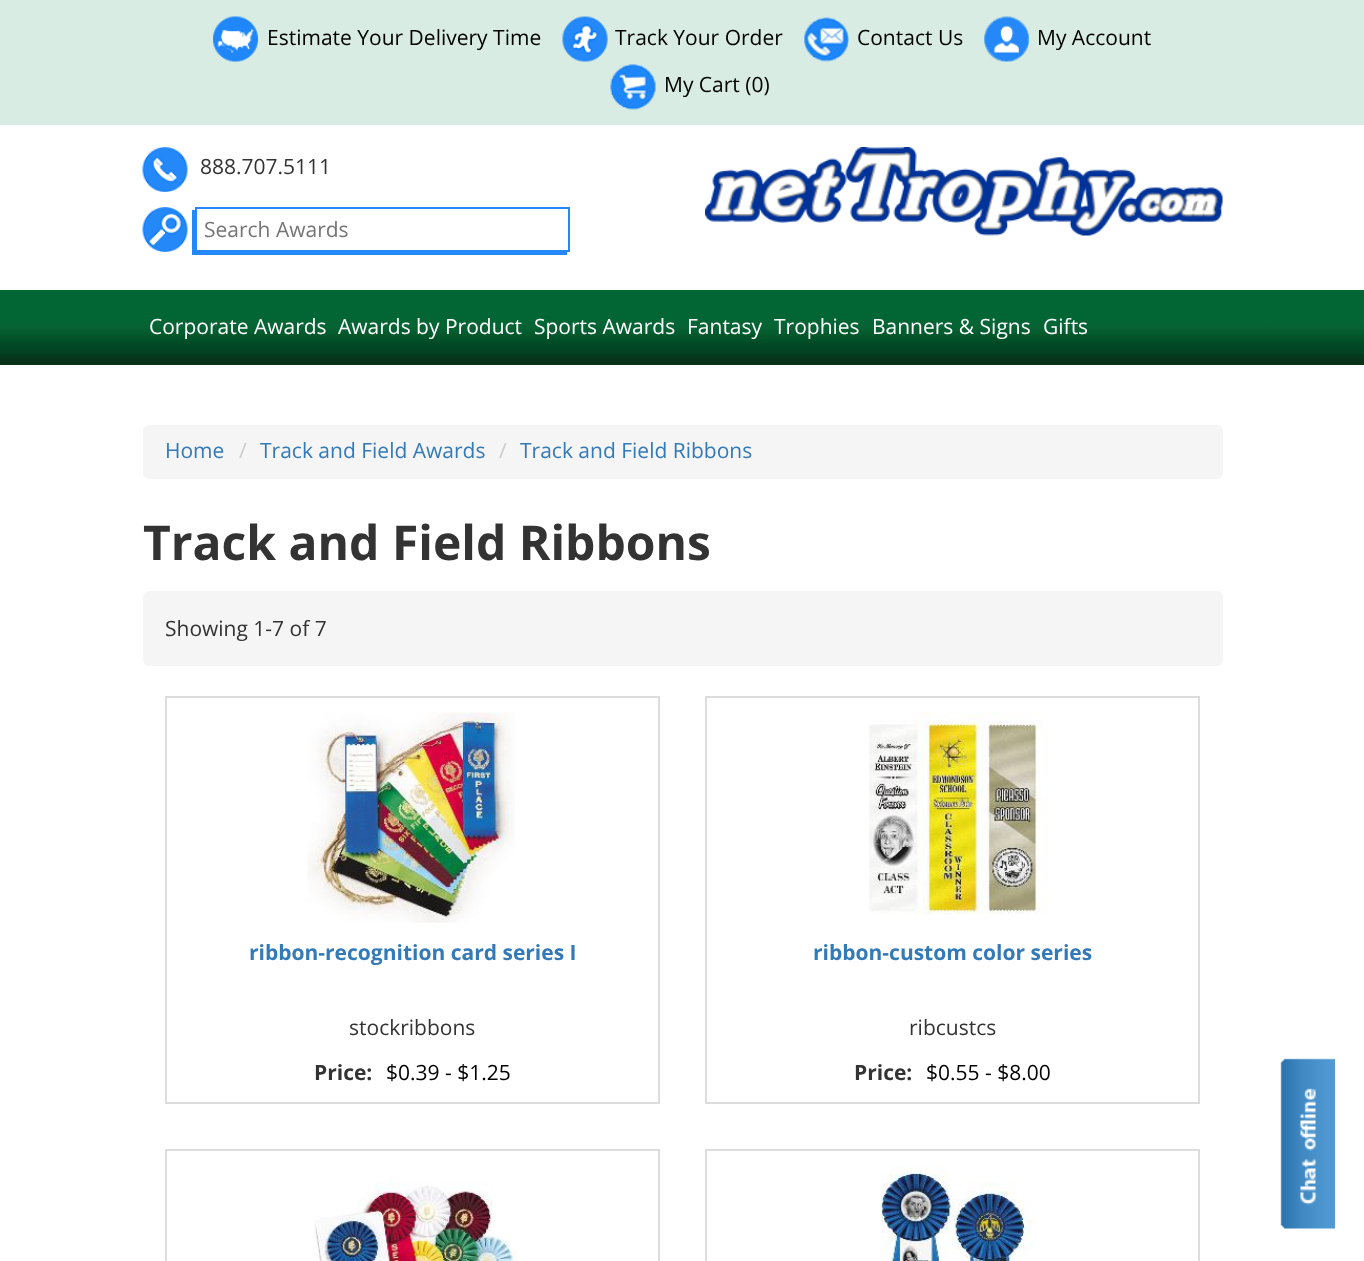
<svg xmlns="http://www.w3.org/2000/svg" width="1364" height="1261">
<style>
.a{font:21px Open Sans;fill:#000}
.b{font:21px Open Sans;fill:#333}
.c{font:21px Open Sans;fill:#757575}
.d{font:21px Open Sans;fill:#fff}
.e{font:21px Open Sans;fill:#337ab7}
.f{font:21px Open Sans;fill:#ccc}
.g{font:bold 48px Open Sans;fill:#333}
.h{font:bold 21px Open Sans;fill:#337ab7}
.i{font:bold 21px Open Sans;fill:#333}
</style>
<defs>
<linearGradient id="g1" gradientUnits="userSpaceOnUse" x1="683" y1="289" x2="683" y2="365"><stop offset="0" stop-color="#036534"/><stop offset="0.39" stop-color="#026634"/><stop offset="0.5" stop-color="#076334"/><stop offset="0.65" stop-color="#005327"/><stop offset="0.67" stop-color="#005128"/><stop offset="0.7" stop-color="#004c25"/><stop offset="0.78" stop-color="#004624"/><stop offset="0.85" stop-color="#054022"/><stop offset="0.87" stop-color="#023a1d"/><stop offset="0.93" stop-color="#08341b"/><stop offset="1" stop-color="#083018"/></linearGradient>
</defs>
<rect width="100%" height="100%" fill="#fff"/>
<path fill="#d8ece3" d="M0 0h1364v125H0z"/>
<image href="1.png" x="213" y="16" width="45" height="46"/>
<image href="2.png" x="562" y="16" width="46" height="46"/>
<image href="3.png" x="804" y="16" width="45" height="46"/>
<image href="4.png" x="984" y="16" width="45" height="46"/>
<image href="5.png" x="610" y="64" width="46" height="46"/>
<image href="6.png" x="142" y="147" width="46" height="45"/>
<image href="7.png" x="142" y="207" width="46" height="45"/>
<path fill="#2488f9" d="M192 210v45h375v-3h-372v-42z"/>
<path fill="none" stroke="#2488f9" stroke-width="2" d="M196 208h373v43H196z"/>
<image href="8.png" x="705" y="147" width="518" height="89"/>
<image href="9.png" x="1280" y="1058" width="55" height="171"/>
<path fill="url(#g1)" d="M0 290h1364v75H0z"/>
<rect fill="#f5f5f5" x="143" y="425" width="1080" height="54" rx="6"/>
<rect fill="#f5f5f5" x="143" y="591" width="1080" height="75" rx="6"/>
<path fill="none" stroke="#ddd" stroke-width="2" d="M166 697h493v406H166z"/>
<image href="10.png" x="307" y="712" width="208" height="211"/>
<path fill="none" stroke="#ddd" stroke-width="2" d="M706 697h493v406H706z"/>
<image href="11.png" x="868" y="712" width="180" height="203"/>
<path fill="none" stroke="#ddd" stroke-width="2" d="M166 1150h493v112H166z"/>
<image href="12.png" x="314" y="1182" width="204" height="79"/>
<path fill="none" stroke="#ddd" stroke-width="2" d="M706 1150h493v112H706z"/>
<image href="13.png" x="880" y="1165" width="153" height="96"/>
<text class="a" x="267" y="45">Estimate Your Delivery Time</text>
<text class="a" x="615" y="45">Track Your Order</text>
<text class="a" x="857" y="45">Contact Us</text>
<text class="a" x="1037" y="45">My Account</text>
<text class="a" x="664" y="92">My Cart (0)</text>
<text class="b" x="200" y="174">888.707.5111</text>
<text class="c" x="204" y="237">Search Awards</text>
<text class="d" x="149" y="334">Corporate Awards</text>
<text class="d" x="338" y="334">Awards by Product</text>
<text class="d" x="534" y="334">Sports Awards</text>
<text class="d" x="687" y="334">Fantasy</text>
<text class="d" x="774" y="334">Trophies</text>
<text class="d" x="872" y="334">Banners &amp; Signs</text>
<text class="d" x="1043" y="334">Gifts</text>
<text class="e" x="165" y="458">Home</text>
<text class="f" x="239" y="458">/</text>
<text class="e" x="260" y="458">Track and Field Awards</text>
<text class="f" x="499" y="458">/</text>
<text class="e" x="520" y="458">Track and Field Ribbons</text>
<text class="g" x="143" y="560">Track and Field Ribbons</text>
<text class="b" x="165" y="636">Showing 1-7 of 7</text>
<text class="h" x="249" y="960">ribbon-recognition card series I</text>
<text class="b" x="349" y="1035">stockribbons</text>
<text class="i" x="314" y="1080">Price:</text>
<text class="a" x="386" y="1080">$0.39 - $1.25</text>
<text class="h" x="813" y="960">ribbon-custom color series</text>
<text class="b" x="909" y="1035">ribcustcs</text>
<text class="i" x="854" y="1080">Price:</text>
<text class="a" x="926" y="1080">$0.55 - $8.00</text>
</svg>
